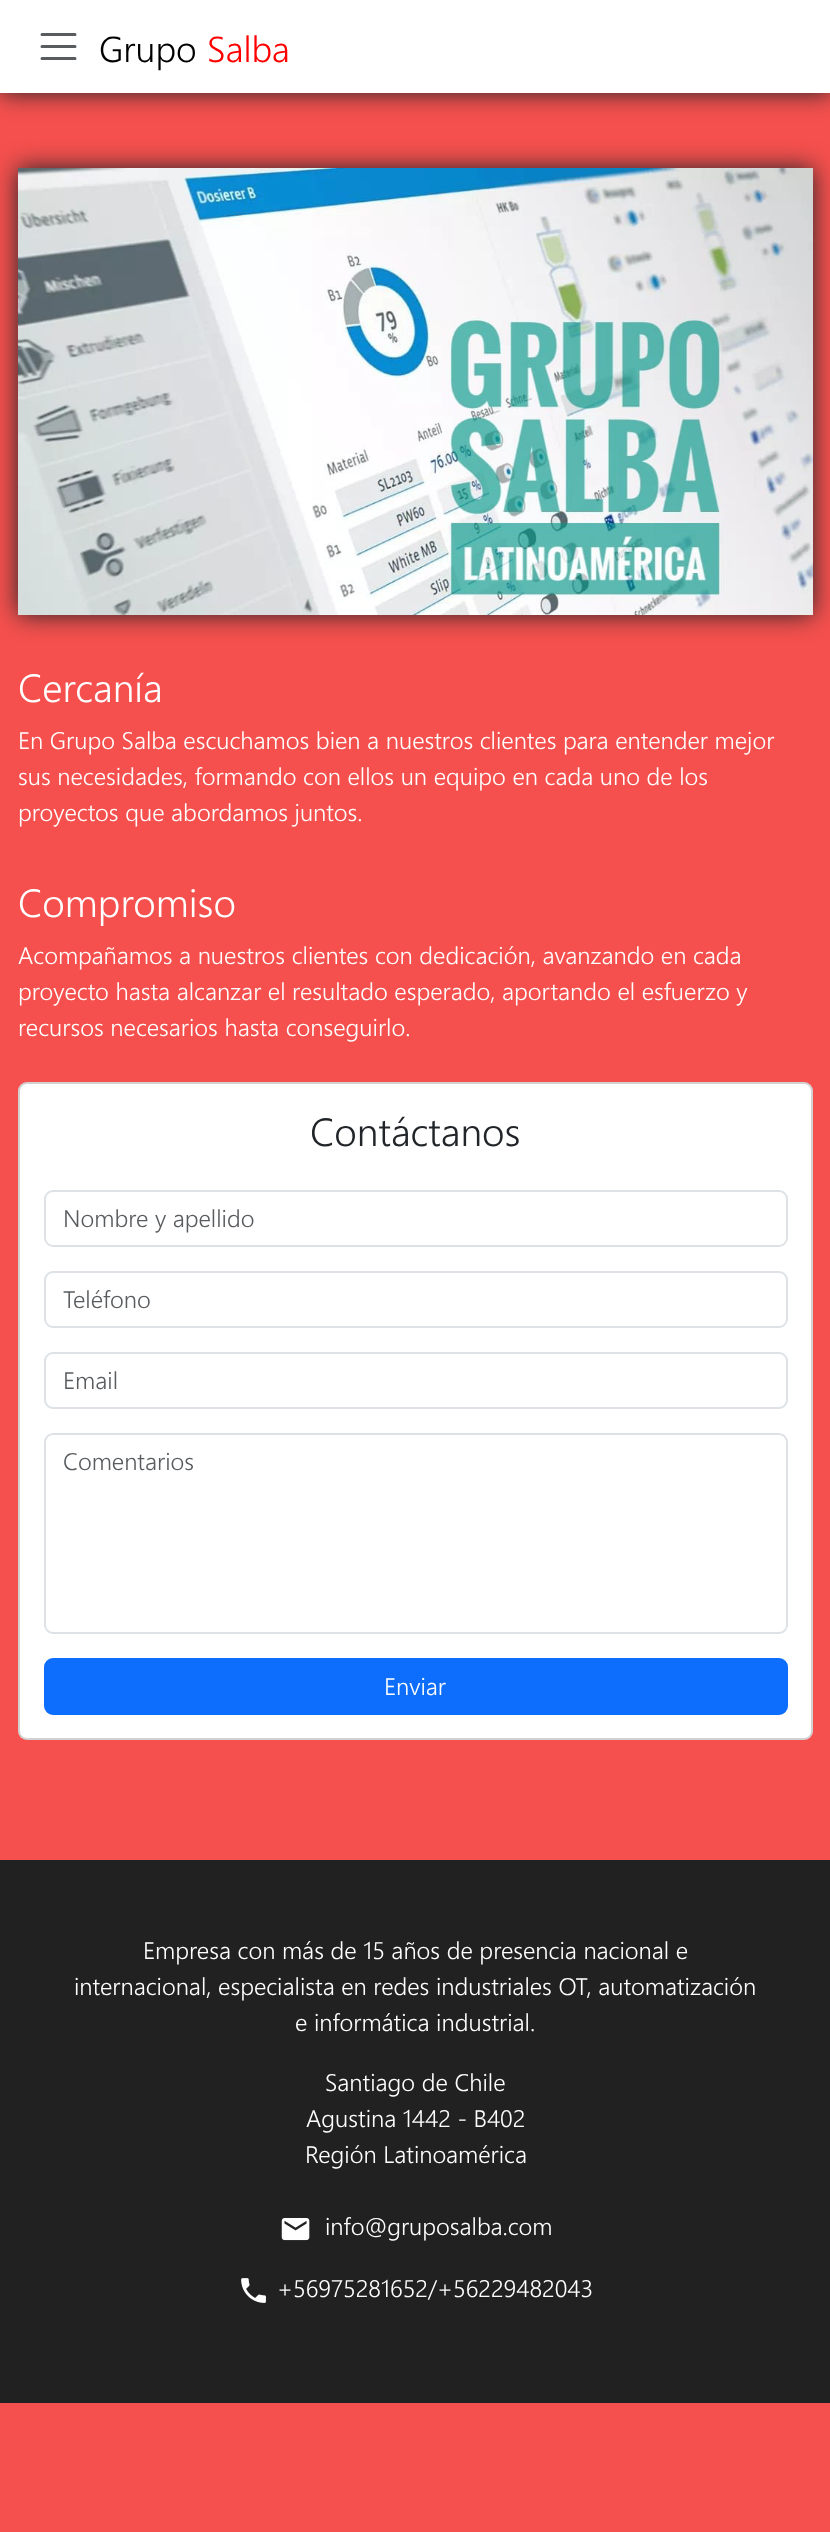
<svg xmlns="http://www.w3.org/2000/svg" width="830" height="2532">
<style>
.a{font:300 36px Segoe UI;fill:#000}
.b{font:300 36px Segoe UI;fill:#f00}
.c{font:300 39.25px Segoe UI;fill:#fff}
.d{font:300 24px Segoe UI;fill:#fff}
.e{font:300 39.25px Segoe UI;fill:#212529}
.f{font:300 24px Segoe UI;fill:#595c5f}
</style>
<rect width="100%" height="100%" fill="#f5504d"/>
<path fill="#212529" filter="blur(12px)" d="M0 0h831v93H0z"/>
<path fill="#fff" d="M0 0h830v93H0z"/>
<path fill="none" stroke="#595c5f" stroke-width="3" stroke-linecap="round" d="M42 34.5h33m-33 12h33m-33 12h33"/>
<path fill="#212529" filter="blur(12px)" d="M18 168h795v447H18z"/>
<image href="1.png" x="18" y="168" width="795" height="447"/>
<rect fill="#fff" x="18" y="1082" width="795" height="658" rx="9"/>
<rect fill="none" stroke="#0000002e" stroke-width="2" x="19" y="1083" width="793" height="656" rx="8"/>
<rect fill="none" stroke="#dee2e6" stroke-width="2" x="45" y="1191" width="742" height="55" rx="8"/>
<rect fill="none" stroke="#dee2e6" stroke-width="2" x="45" y="1272" width="742" height="55" rx="8"/>
<rect fill="none" stroke="#dee2e6" stroke-width="2" x="45" y="1353" width="742" height="55" rx="8"/>
<rect fill="none" stroke="#dee2e6" stroke-width="2" x="45" y="1434" width="742" height="199" rx="8"/>
<rect fill="#0d6efd" stroke="#0d6efd" stroke-width="2" x="45" y="1659" width="742" height="55" rx="8"/>
<path fill="#212121" d="M0 1860h830v543H0z"/>
<image href="2.png" x="281" y="2218" width="29" height="23"/>
<image href="3.png" x="241" y="2278" width="25" height="25"/>
<text class="a" x="99" y="62">Grupo</text>
<text class="b" x="207" y="62">Salba</text>
<text class="c" x="18" y="702">Cercanía</text>
<text class="d" x="18" y="749">En Grupo Salba escuchamos bien a nuestros clientes para entender mejor</text>
<text class="d" x="18" y="785">sus necesidades, formando con ellos un equipo en cada uno de los</text>
<text class="d" x="18" y="821">proyectos que abordamos juntos.</text>
<text class="c" x="18" y="917">Compromiso</text>
<text class="d" x="18" y="964">Acompañamos a nuestros clientes con dedicación, avanzando en cada</text>
<text class="d" x="18" y="1000">proyecto hasta alcanzar el resultado esperado, aportando el esfuerzo y</text>
<text class="d" x="18" y="1036">recursos necesarios hasta conseguirlo.</text>
<text class="e" x="310" y="1146">Contáctanos</text>
<text class="f" x="63" y="1227">Nombre y apellido</text>
<text class="f" x="63" y="1308">Teléfono</text>
<text class="f" x="63" y="1389">Email</text>
<text class="f" x="63" y="1470">Comentarios</text>
<text class="d" x="384" y="1695">Enviar</text>
<text class="d" x="143" y="1959">Empresa con más de 15 años de presencia nacional e</text>
<text class="d" x="74" y="1995">internacional, especialista en redes industriales OT, automatización</text>
<text class="d" x="295" y="2031">e informática industrial.</text>
<text class="d" x="325" y="2091">Santiago de Chile</text>
<text class="d" x="306" y="2127">Agustina 1442 - B402</text>
<text class="d" x="305" y="2163">Región Latinoamérica</text>
<text class="d" x="325" y="2235">info@gruposalba.com</text>
<text class="d" x="277" y="2297">+56975281652/+56229482043</text>
</svg>
